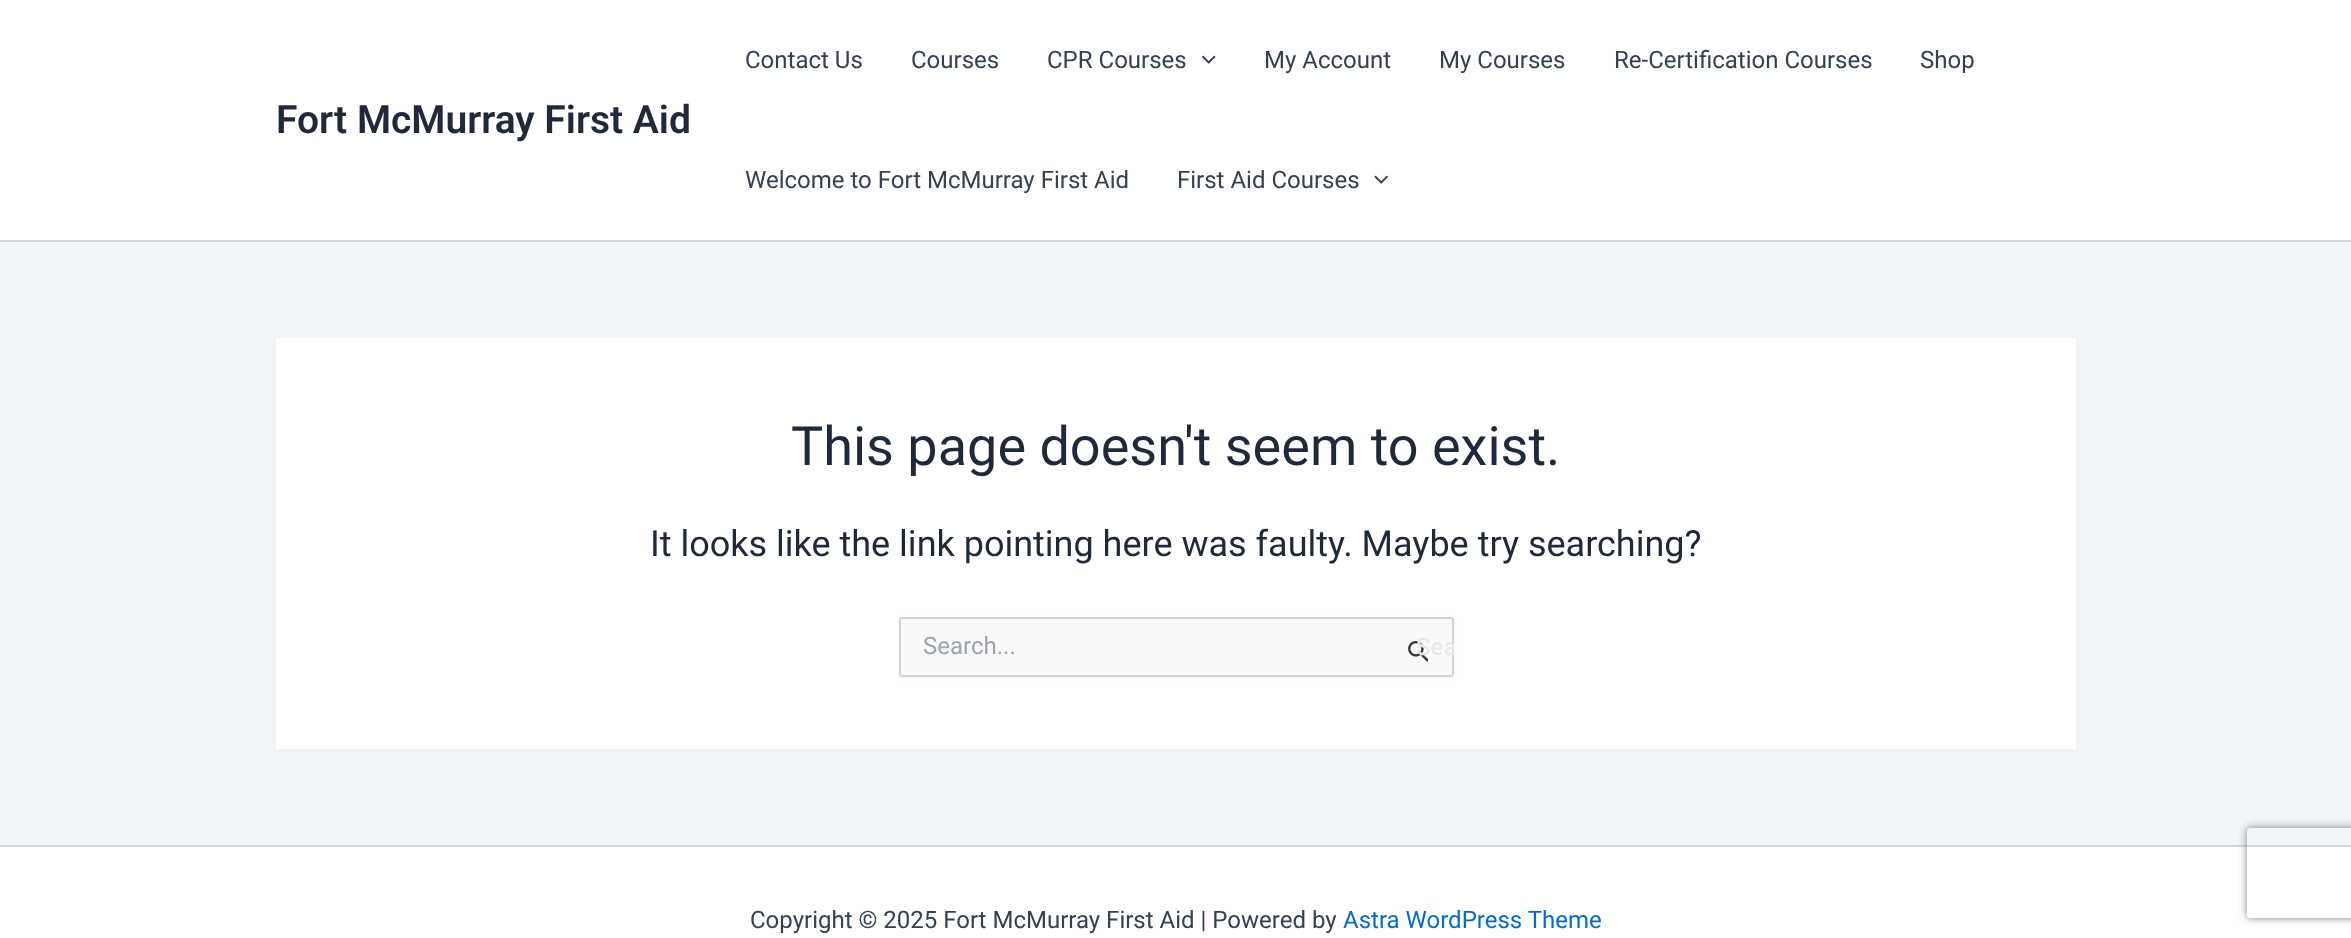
<svg xmlns="http://www.w3.org/2000/svg" width="2351" height="938">
<style>
.a{font:600 39px Roboto;fill:#1e293b}
.b{font:24px Roboto;fill:#334155}
.c{font:54px Roboto;fill:#1e293b}
.d{font:36px Roboto;fill:#1e293b}
.e{font:24px Roboto;fill:#9ca3af}
.f{font:500 24px Roboto;fill:#e6e7e7}
.g{font:24px Roboto;fill:#046bd2}
</style>
<defs>
<clipPath id="clip1"><path d="M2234 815h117v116h-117zm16 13h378c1.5 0 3 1.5 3 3v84c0 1.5-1.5 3-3 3h-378c-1.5 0-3-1.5-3-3v-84c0-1.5 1.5-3 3-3z" clip-rule="evenodd"/></clipPath>
<clipPath id="clip2"><rect x="1386" y="617" width="68" height="63" rx="3"/></clipPath>
</defs>
<rect width="100%" height="100%" fill="#f0f5fa"/>
<path fill="#fff" d="M0 0h2351v240H0z"/>
<path fill="#d1d5db" d="M0 240h2351v2H0z"/>
<image href="1.png" x="1202" y="55" width="14" height="9"/>
<image href="2.png" x="1374" y="175" width="14" height="9"/>
<path fill="#fff" d="M276 338h1800v411H276z"/>
<rect fill="#0000000d" filter="blur(1.5px)" x="899" y="618" width="555" height="60" rx="3"/>
<rect fill="#fafafa" stroke="#d1d5db" stroke-width="2" x="900" y="618" width="553" height="58" rx="2"/>
<image href="3.png" x="1408" y="641" width="20" height="21"/>
<path fill="#fff" d="M0 847h2351v91H0z"/>
<path fill="#d1d5db" d="M0 845h2351v2H0z"/>
<g clip-path="url(#clip1)">
<rect fill="#808080" filter="blur(4px)" x="2247" y="828" width="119" height="90" rx="3"/>
</g>
<text class="a" x="276" y="133">Fort McMurray First Aid</text>
<text class="b" x="745" y="68">Contact Us</text>
<text class="b" x="911" y="68">Courses</text>
<text class="b" x="1047" y="68">CPR Courses</text>
<text class="b" x="1264" y="68">My Account</text>
<text class="b" x="1439" y="68">My Courses</text>
<text class="b" x="1614" y="68">Re-Certification Courses</text>
<text class="b" x="1920" y="68">Shop</text>
<text class="b" x="745" y="188">Welcome to Fort McMurray First Aid</text>
<text class="b" x="1177" y="188">First Aid Courses</text>
<text class="c" x="791" y="465">This page doesn't seem to exist.</text>
<text class="d" x="650" y="556">It looks like the link pointing here was faulty. Maybe try searching?</text>
<text class="e" x="923" y="654">Search...</text>
<g clip-path="url(#clip2)">
<text class="f" x="1416" y="655">Sea</text>
</g>
<text class="b" x="750" y="928">Copyright © 2025 Fort McMurray First Aid | Powered by</text>
<text class="g" x="1343" y="928">Astra WordPress Theme</text>
</svg>
